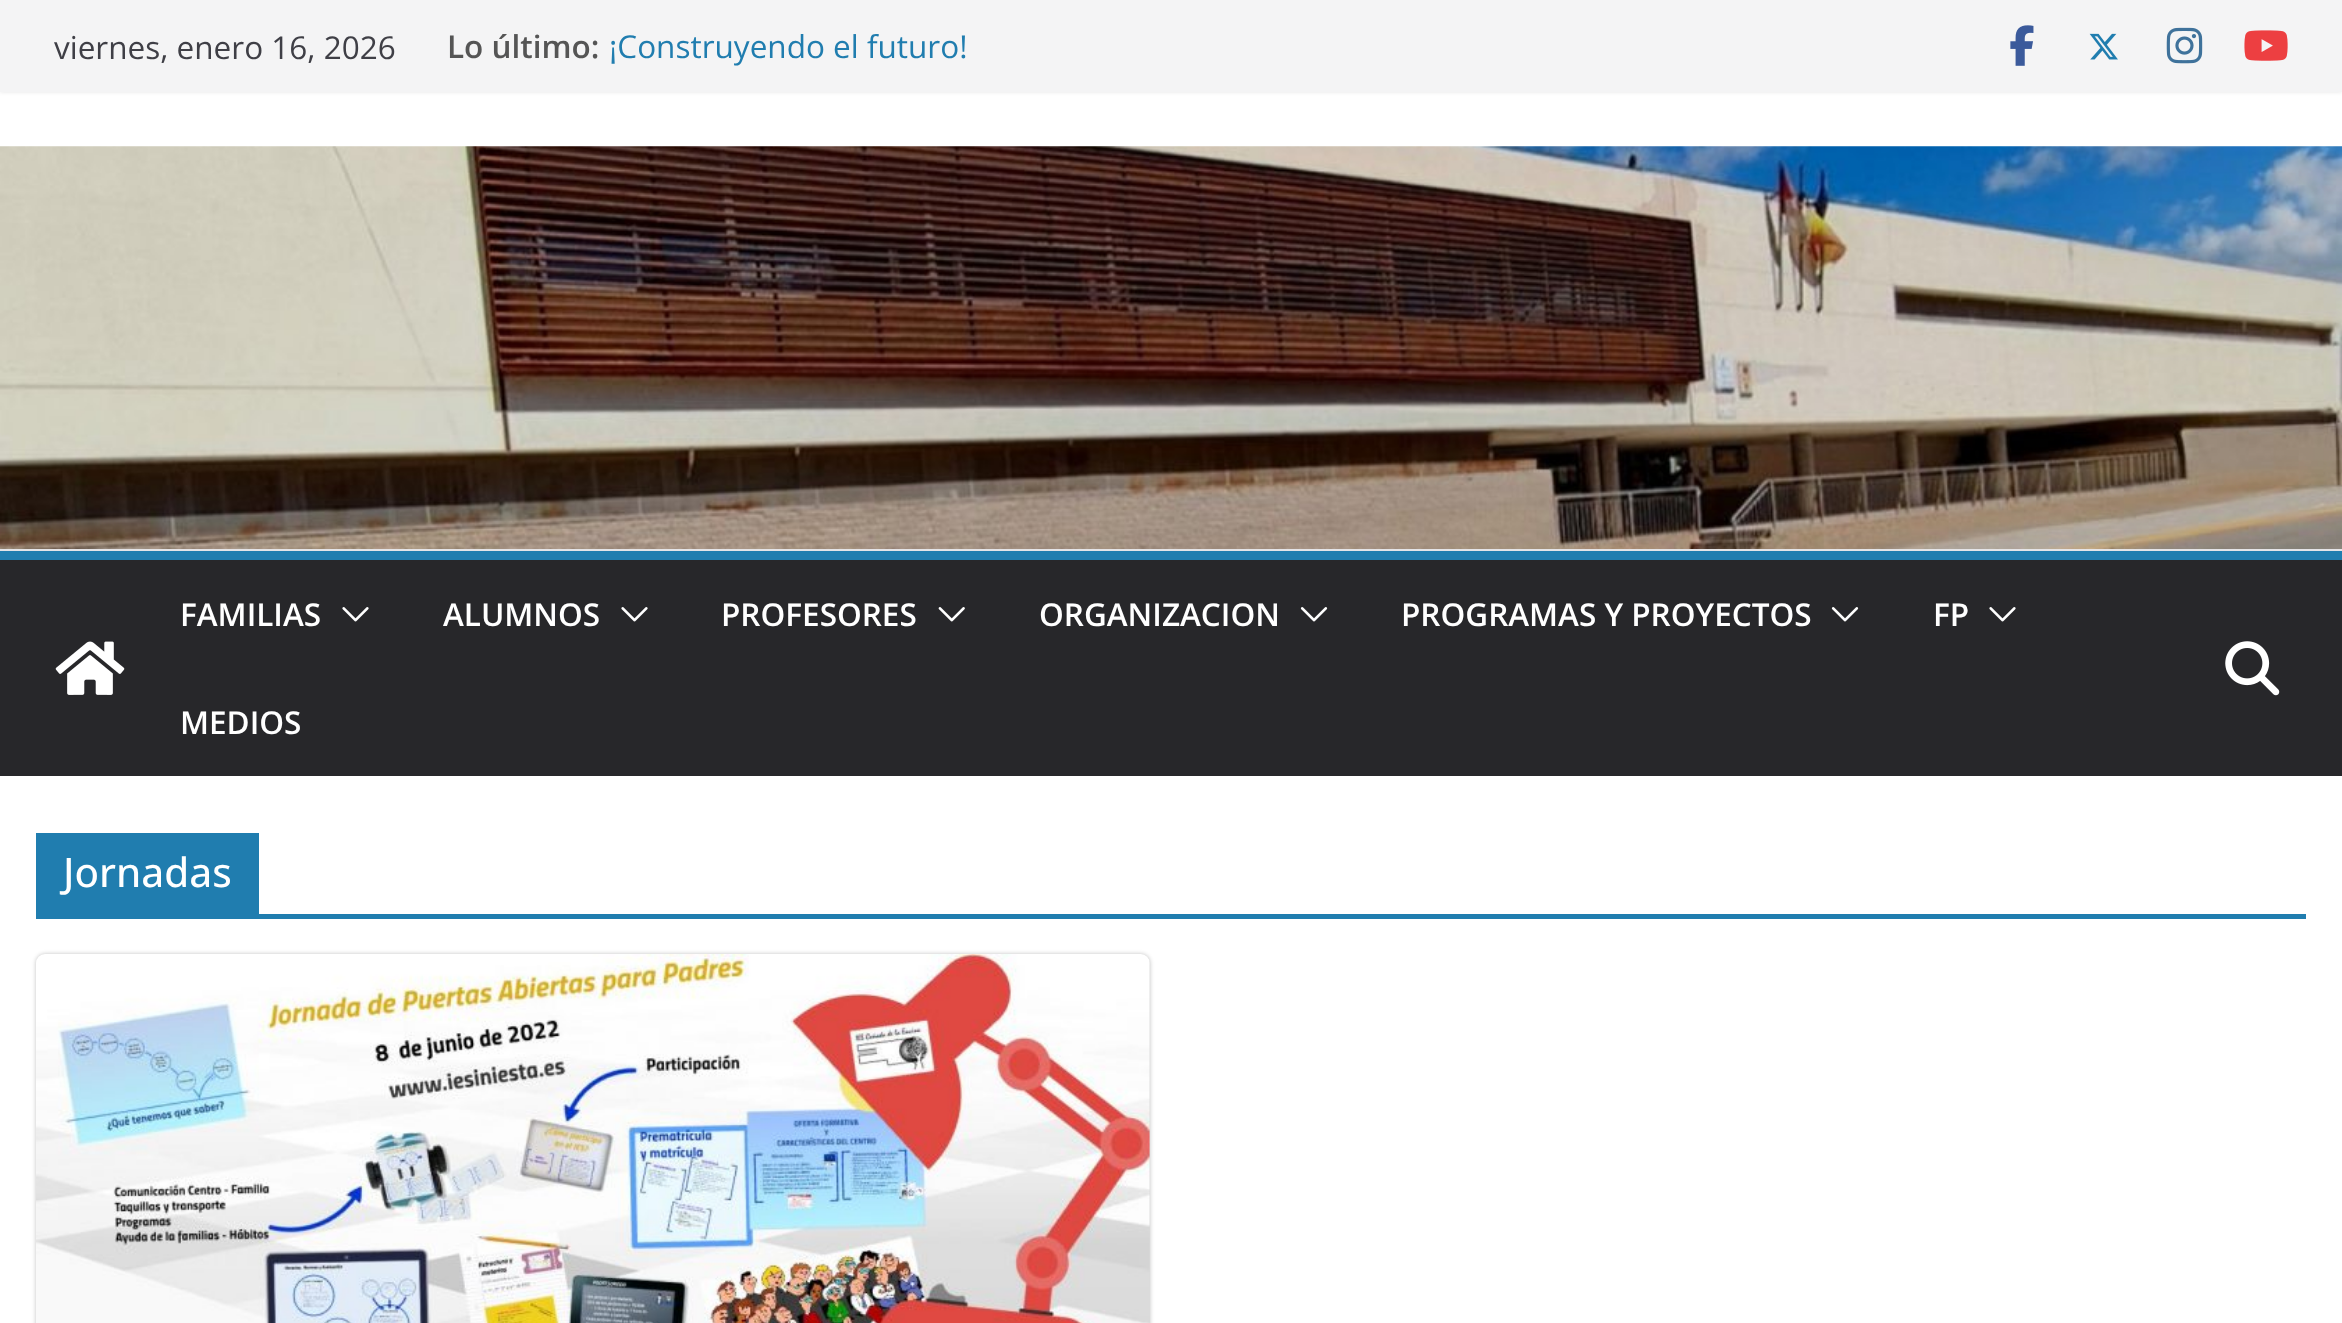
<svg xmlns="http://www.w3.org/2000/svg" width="2342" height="1323">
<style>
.a{font:31.5px Open Sans;fill:#3f3f46}
.b{font:600 31.5px Open Sans;fill:#555}
.c{font:31.5px Open Sans;fill:#207daf}
.d{font:600 31.5px Open Sans;fill:#fff}
.e{font:500 40.5px Open Sans;fill:#fff}
</style>
<rect width="100%" height="100%" fill="#fff"/>
<path fill="#0000001a" filter="blur(2px)" d="M0 0h2342v92H0z"/>
<path fill="#f4f4f5" d="M0 0h2342v92H0z"/>
<image href="1.png" x="2010" y="25" width="24" height="41"/>
<image href="2.png" x="2089" y="33" width="29" height="27"/>
<image href="3.png" x="2166" y="27" width="37" height="37"/>
<image href="4.png" x="2244" y="30" width="44" height="31"/>
<image href="5.png" x="0" y="146" width="2342" height="403"/>
<path fill="#e4e4e7" d="M0 549h2342v2H0z"/>
<path fill="#27272a" d="M0 560h2342v216H0z"/>
<path fill="#207daf" d="M0 551h2342v9H0z"/>
<image href="6.png" x="55" y="641" width="70" height="54"/>
<image href="7.png" x="342" y="607" width="27" height="15"/>
<image href="7.png" x="621" y="607" width="27" height="15"/>
<image href="8.png" x="938" y="607" width="27" height="15"/>
<image href="9.png" x="1300" y="607" width="28" height="15"/>
<image href="9.png" x="1831" y="607" width="28" height="15"/>
<image href="7.png" x="1989" y="607" width="27" height="15"/>
<image href="10.png" x="2225" y="641" width="55" height="55"/>
<path fill="#207daf" d="M36 914h2270v5H36z"/>
<path fill="#207daf" d="M36 833h223v81H36z"/>
<rect fill="#0000003d" filter="blur(2px)" x="36" y="954" width="1114" height="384" rx="9"/>
<image href="11.png" x="36" y="954" width="1114" height="369"/>
<text class="a" x="54" y="59">viernes, enero 16, 2026</text>
<text class="b" x="447" y="58">Lo último:</text>
<text class="c" x="609" y="58">¡Construyendo el futuro!</text>
<text class="d" x="180" y="626">FAMILIAS</text>
<text class="d" x="443" y="626">ALUMNOS</text>
<text class="d" x="721" y="626">PROFESORES</text>
<text class="d" x="1039" y="626">ORGANIZACION</text>
<text class="d" x="1401" y="626">PROGRAMAS Y PROYECTOS</text>
<text class="d" x="1933" y="626">FP</text>
<text class="d" x="180" y="734">MEDIOS</text>
<text class="e" x="63" y="887">Jornadas</text>
</svg>
